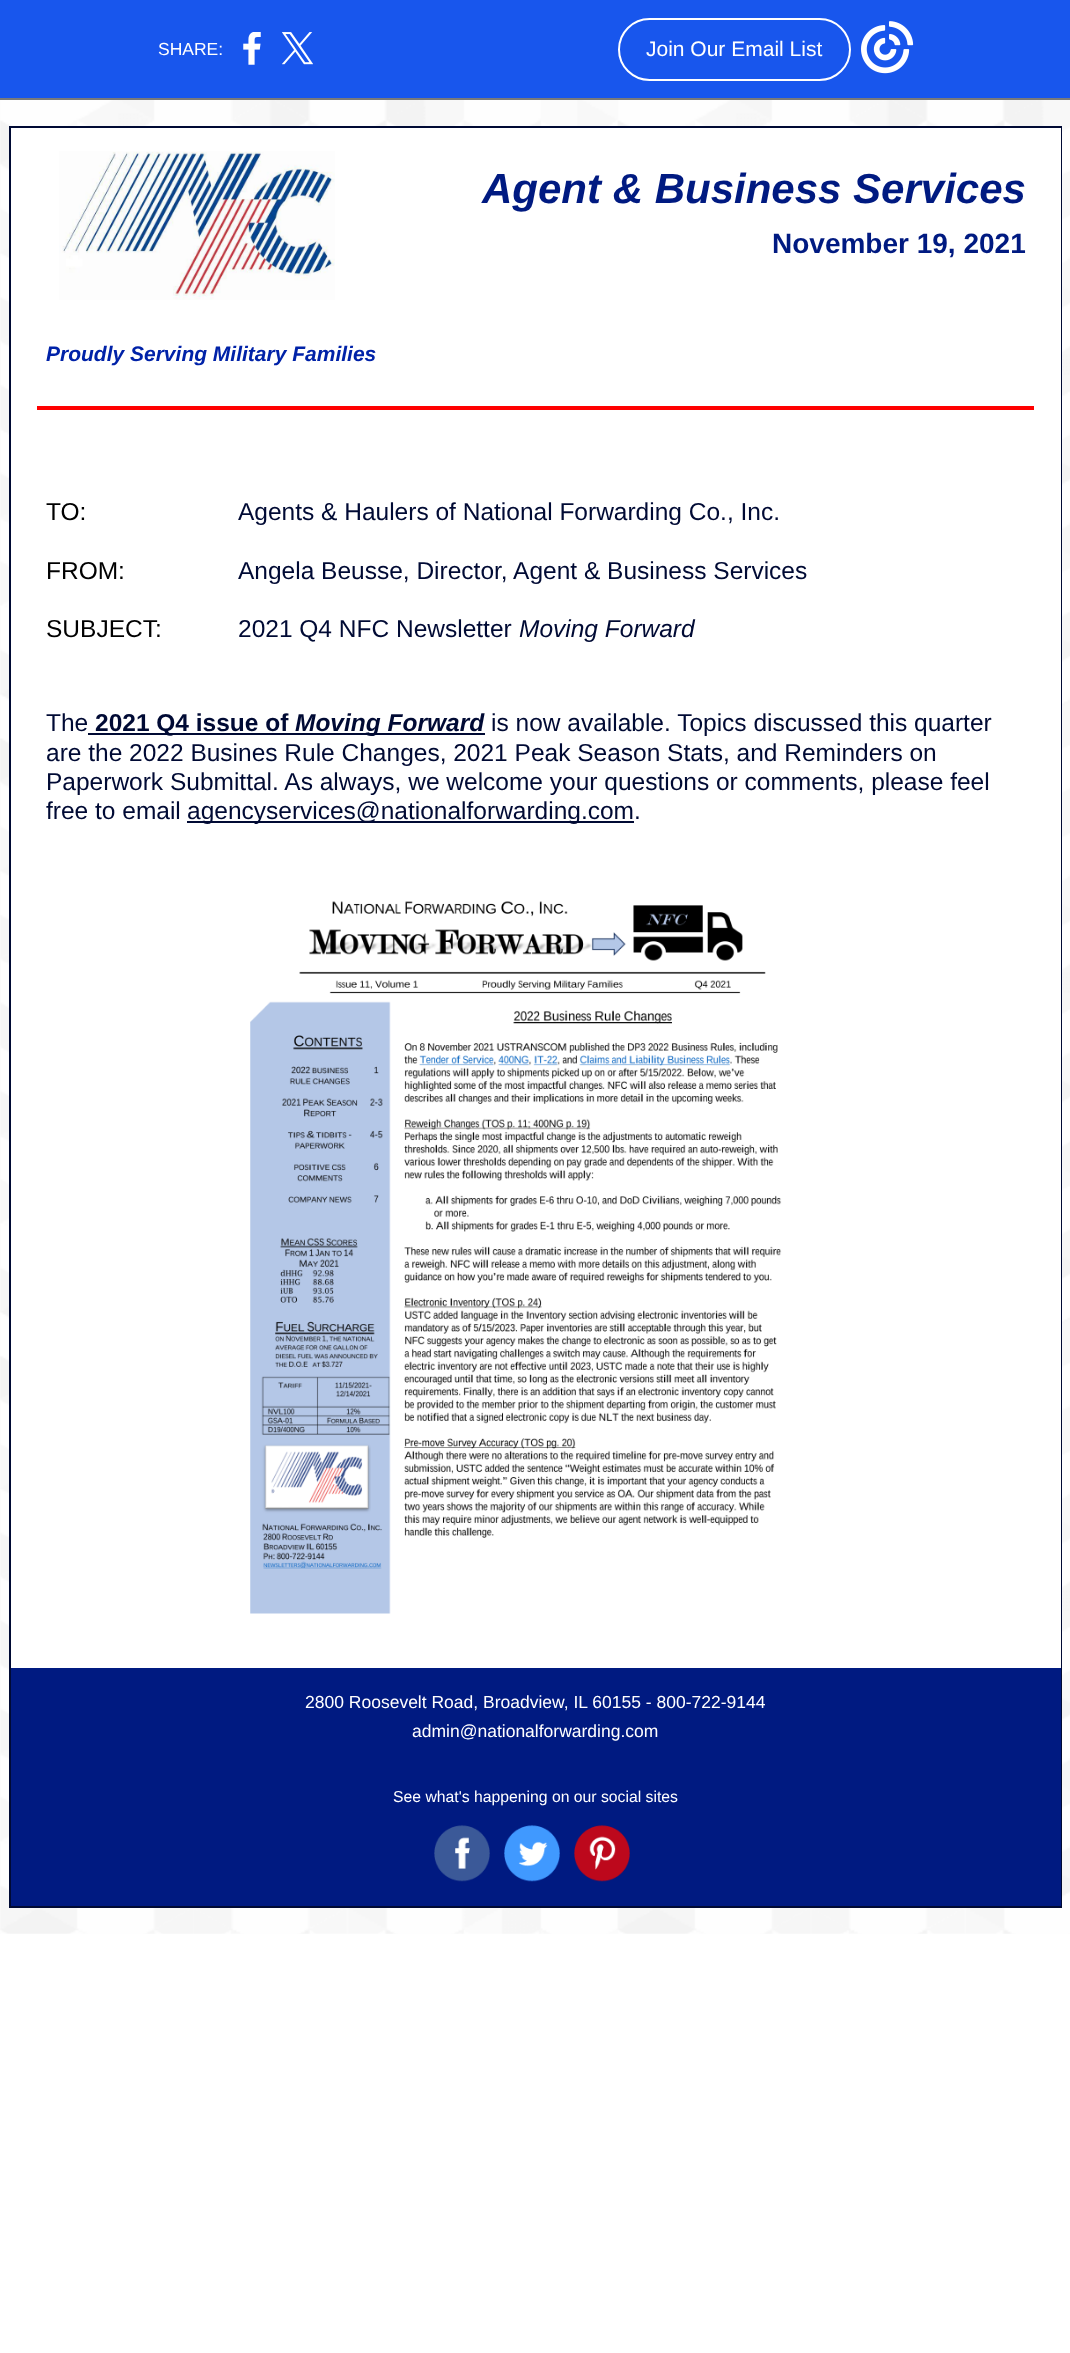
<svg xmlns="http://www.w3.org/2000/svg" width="1070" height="2353">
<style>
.a{font:17.5px Liberation Sans;fill:#fff}
.b{font:21px Liberation Sans;fill:#fff}
.c{font:italic bold 42px Liberation Sans;fill:#001a81}
.d{font:bold 28px Liberation Sans;fill:#001a81}
.e{font:italic bold 21px Liberation Sans;fill:#0022a8}
.f{font:24.5px Liberation Sans;fill:#000}
.g{font:24.5px Liberation Sans;fill:#000a34}
.h{font:italic 24.5px Liberation Sans;fill:#000a34}
.i{font:bold 24.5px Liberation Sans;fill:#000a34}
.j{font:italic bold 24.5px Liberation Sans;fill:#000a34}
.k{font:15.75px Liberation Sans;fill:#fff}
</style>
<rect width="100%" height="100%" fill="#fff"/>
<path fill="#1856ed" d="M0 0h1070v98H0z"/>
<path fill="#7a7a7a" d="M0 98h1070v2H0z"/>
<image href="1.png" x="243" y="32" width="18" height="33"/>
<image href="2.png" x="282" y="32" width="31" height="33"/>
<rect fill="none" stroke="#fff" stroke-width="2" x="619" y="19" width="231" height="61" rx="30.5"/>
<image href="3.png" x="861" y="21" width="53" height="53"/>
<image href="4.png" x="0" y="100" width="1070" height="1834"/>
<path fill="#000a34" d="M9 126h1053v1782H9z"/>
<path fill="#fff" d="M11 128h1050v1540H11z"/>
<image href="5.png" x="59" y="151" width="276" height="149"/>
<path fill="#f00" d="M37 406h997v4H37z"/>
<path fill="#000a34" d="M88 733h397v2H88z"/>
<path fill="#000a34" d="M187 821h447v2H187z"/>
<image href="6.png" x="250" y="901" width="532" height="713"/>
<path fill="#001a81" d="M11 1668h1050v238H11z"/>
<image href="7.png" x="434" y="1825" width="56" height="57"/>
<image href="8.png" x="504" y="1825" width="56" height="57"/>
<image href="9.png" x="574" y="1825" width="56" height="57"/>
<text class="a" x="158" y="55">SHARE:</text>
<text class="b" x="646" y="56">Join Our Email List</text>
<text class="c" x="482" y="203">Agent &amp; Business Services</text>
<text class="d" x="772" y="253">November 19, 2021</text>
<text class="e" x="46" y="361">Proudly Serving Military Families</text>
<text class="f" x="46" y="520">TO:</text>
<text class="f" x="46" y="579">FROM:</text>
<text class="f" x="46" y="637">SUBJECT:</text>
<text class="g" x="238" y="520">Agents &amp; Haulers of National Forwarding Co., Inc.</text>
<text class="g" x="238" y="579">Angela Beusse, Director, Agent &amp; Business Services</text>
<text class="g" x="238" y="637">2021 Q4 NFC Newsletter</text>
<text class="h" x="519" y="637">Moving Forward</text>
<text class="g" x="46" y="731">The</text>
<text class="i" x="95" y="731">2021 Q4 issue of</text>
<text class="j" x="295" y="731">Moving Forward</text>
<text class="g" x="491" y="731">is now available. Topics discussed this quarter</text>
<text class="g" x="46" y="761">are the 2022 Busines Rule Changes, 2021 Peak Season Stats, and Reminders on</text>
<text class="g" x="46" y="790">Paperwork Submittal. As always, we welcome your questions or comments, please feel</text>
<text class="g" x="46" y="819">free to email</text>
<text class="g" x="187" y="819">agencyservices@nationalforwarding.com.</text>
<text class="a" x="305" y="1708">2800 Roosevelt Road, Broadview, IL 60155 - 800-722-9144</text>
<text class="a" x="412" y="1737">admin@nationalforwarding.com</text>
<text class="k" x="393" y="1802">See what's happening on our social sites</text>
</svg>
